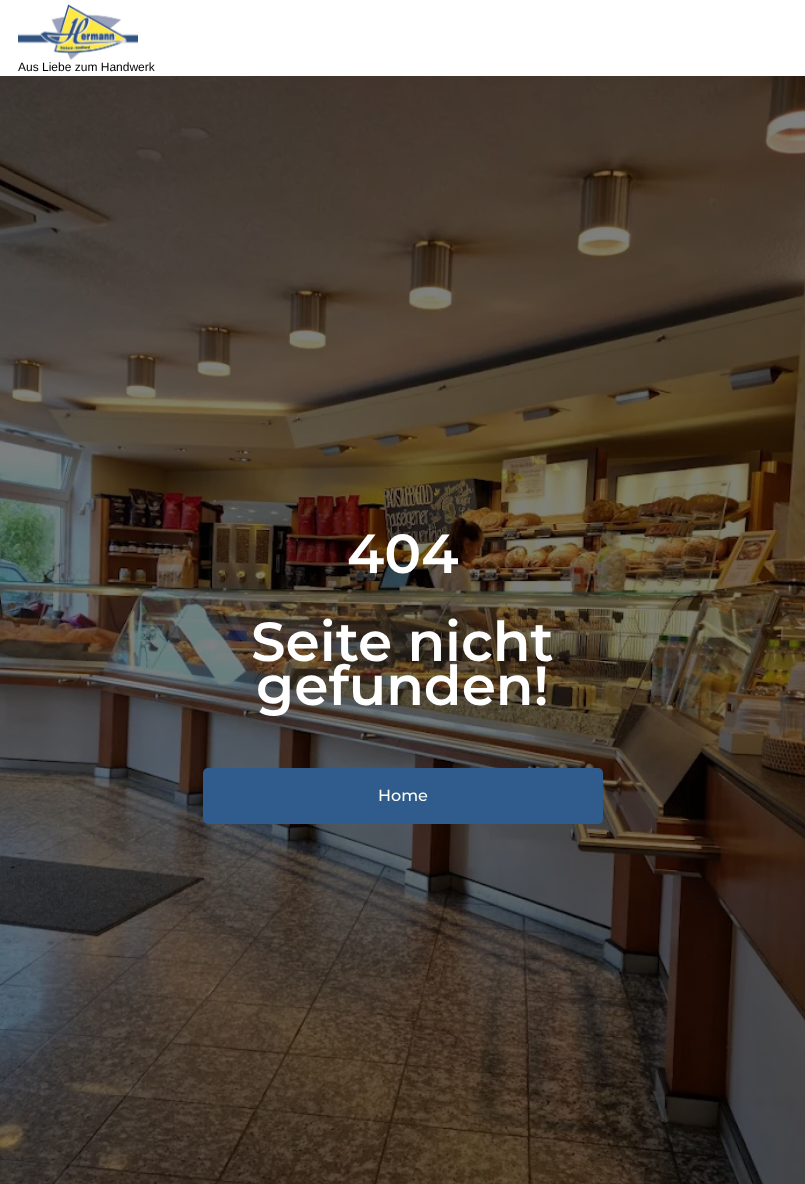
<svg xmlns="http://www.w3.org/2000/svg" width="805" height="1184">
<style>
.a{font:12px Liberation Sans;fill:#000}
.b{font:600 55px Montserrat;fill:#fff}
.c{font:500 16px Montserrat;fill:#fcfef4}
</style>
<rect width="100%" height="100%" fill="#fff"/>
<image href="1.png" x="18" y="4" width="120" height="56"/>
<image href="2.png" x="0" y="76" width="805" height="1108"/>
<rect fill="#2f5c8c" x="203" y="768" width="400" height="56" rx="5"/>
<text class="a" x="18" y="71">Aus Liebe zum Handwerk</text>
<text class="b" x="347" y="573">404</text>
<text class="b" x="251" y="661">Seite nicht</text>
<text class="b" x="256" y="705">gefunden!</text>
<text class="c" x="378" y="801">Home</text>
</svg>
